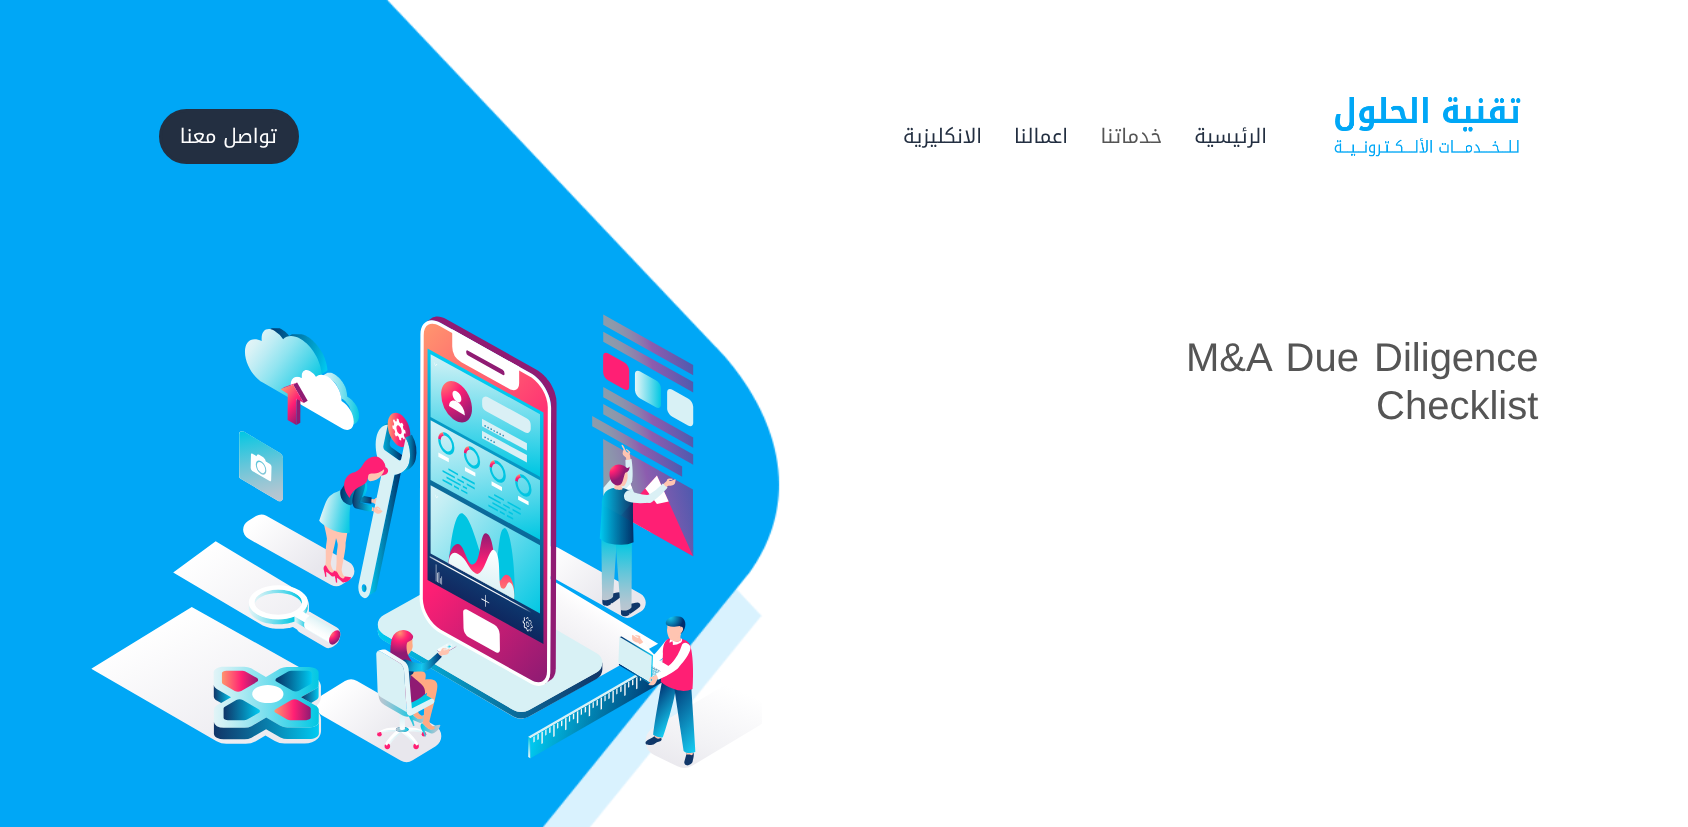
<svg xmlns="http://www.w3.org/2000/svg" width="1688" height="827">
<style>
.a{font:20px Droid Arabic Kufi;direction:rtl;fill:#232f41}
.b{font:20px Droid Arabic Kufi;direction:rtl;fill:#555}
.c{font:20px Droid Arabic Kufi;direction:rtl;fill:#fff}
.d{font:40px Liberation Sans;fill:#555}
</style>
<rect width="100%" height="100%" fill="#fff"/>
<image href="1.png" x="0" y="0" width="780" height="827"/>
<image href="2.png" x="1334" y="97" width="187" height="60"/>
<rect fill="#232f41" stroke="#232f41" stroke-width="3" x="160.5" y="110.5" width="137" height="52" rx="26"/>
<image href="3.png" x="91" y="314" width="671" height="454"/>
<text class="a" x="1267" y="143">الرئيسية</text>
<text class="b" x="1162" y="143">خدماتنا</text>
<text class="a" x="1068" y="143">اعمالنا</text>
<text class="a" x="982" y="143">الانكليزية</text>
<text class="c" x="277" y="143">تواصل معنا</text>
<text class="d" x="1186" y="371" word-spacing="4">M&amp;A Due Diligence</text>
<text class="d" x="1376" y="419">Checklist</text>
</svg>
